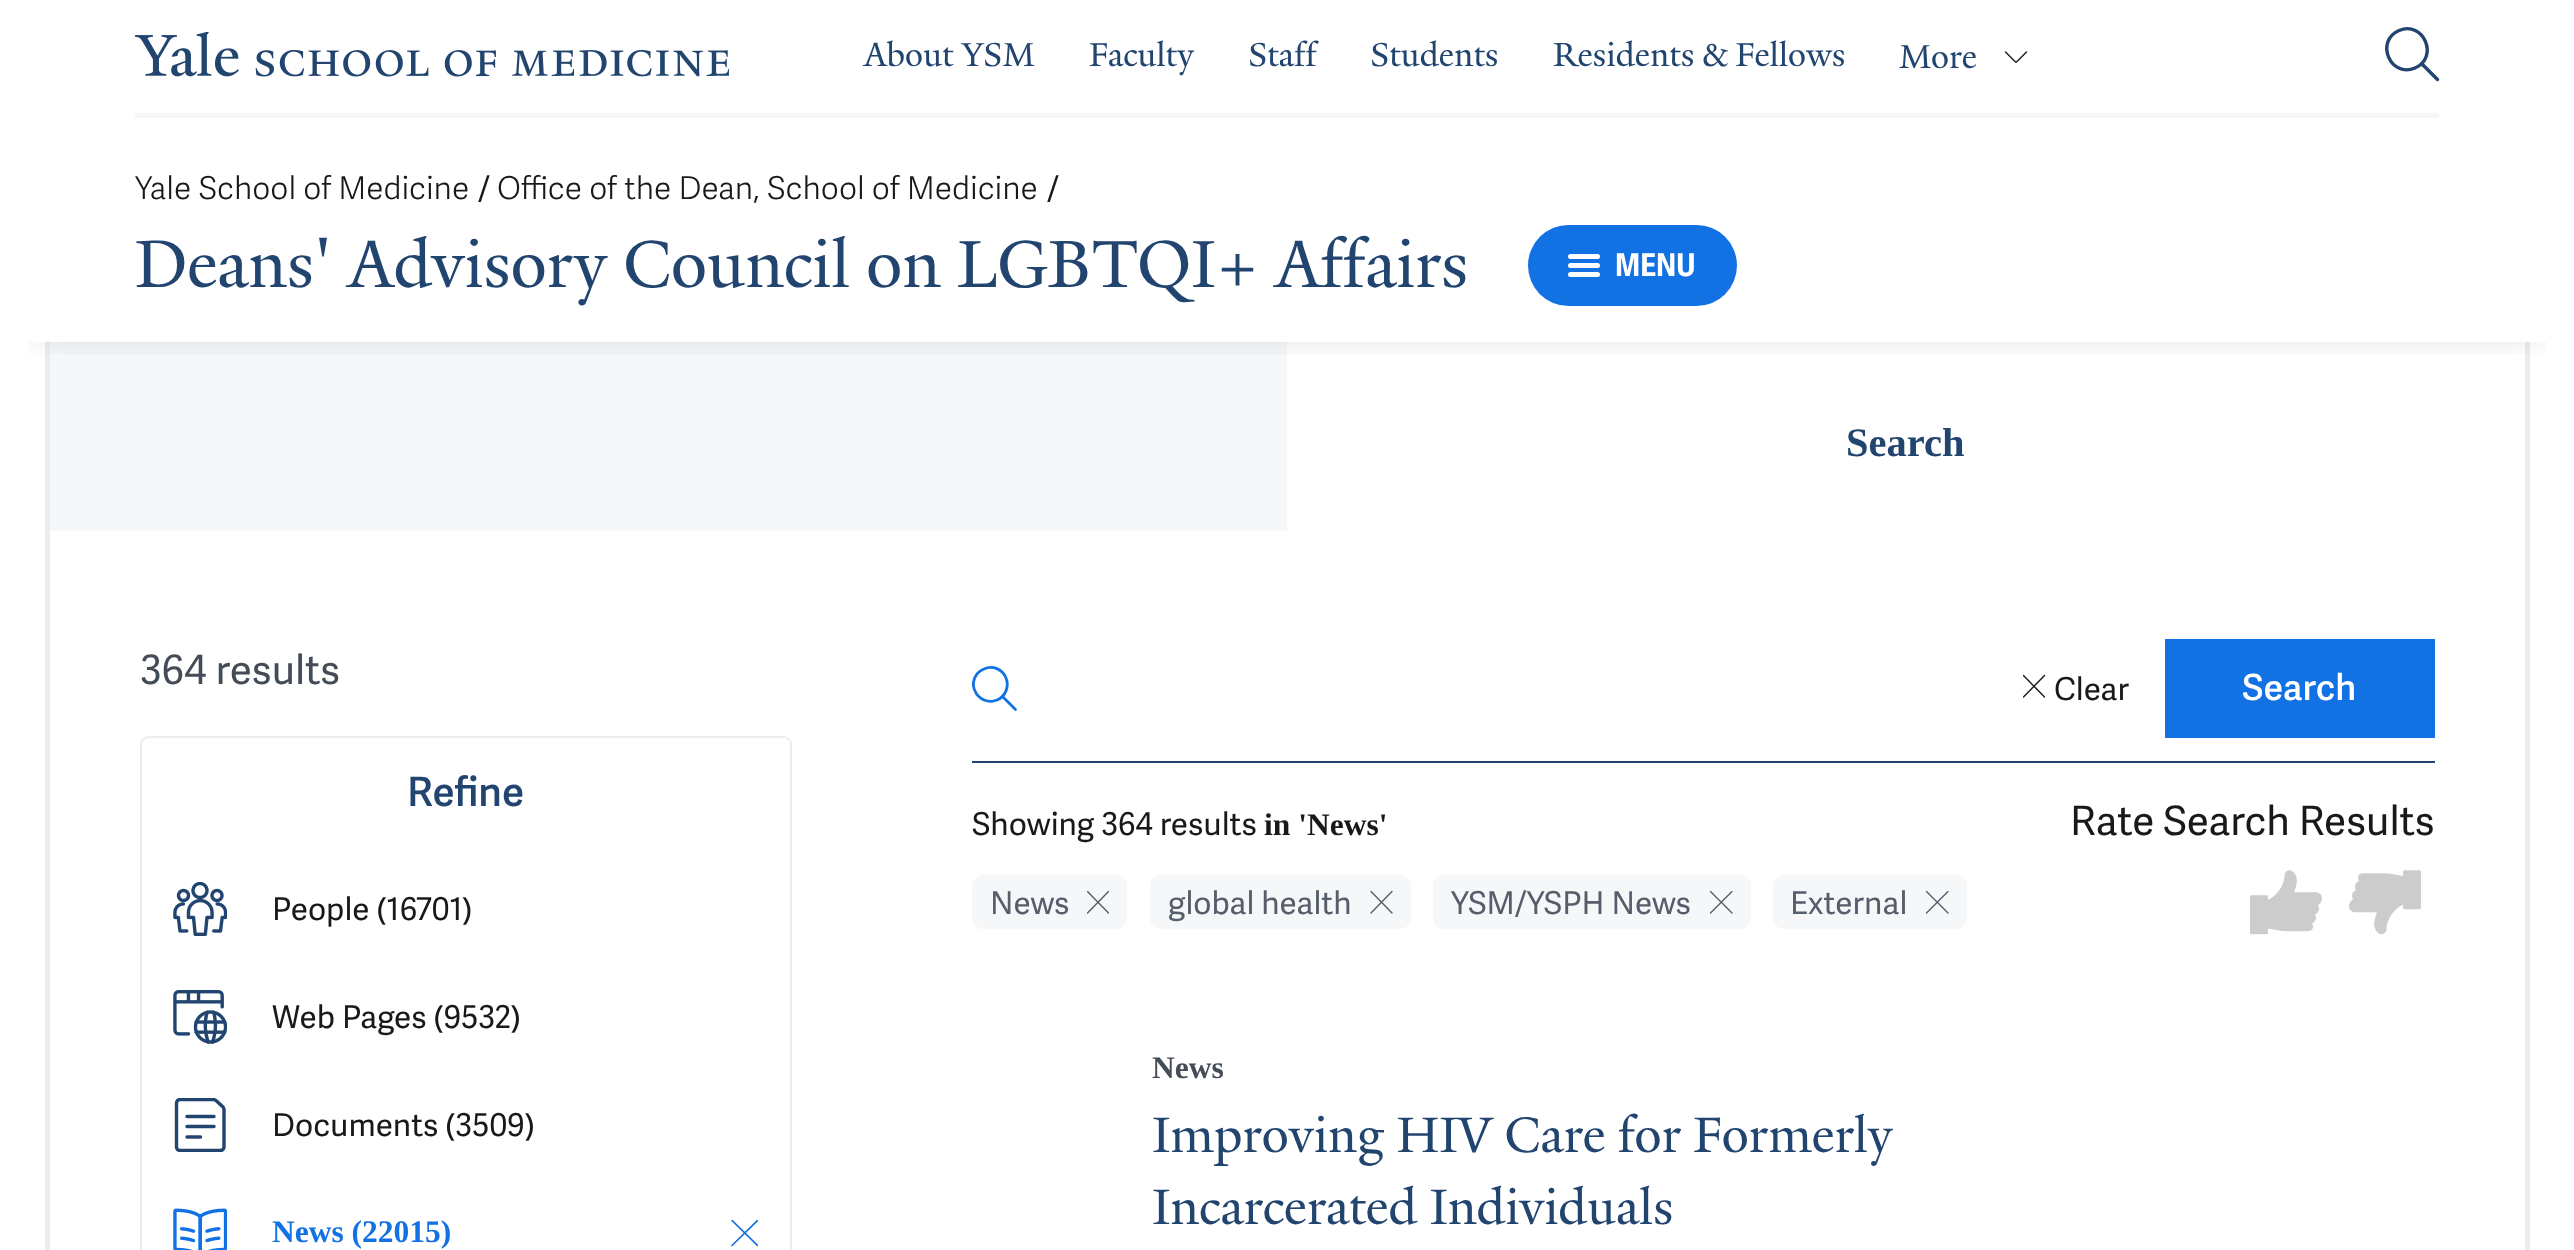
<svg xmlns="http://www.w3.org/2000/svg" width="2574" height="1250">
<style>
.a{font:36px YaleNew;fill:#224570}
.b{font:300 31.5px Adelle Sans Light;fill:#191919}
.c{font:31.5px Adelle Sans;fill:#191919}
.d{font:72px YaleNew;fill:#224570}
.e{font:bold 31.5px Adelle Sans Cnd;fill:#fff}
.f{font:bold 40.5px Liberation Serif;fill:#224570}
.g{font:40.5px Adelle Sans;fill:#444c57}
.h{font:600 40.5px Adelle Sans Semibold;fill:#224570}
.i{font:bold 31.5px Liberation Serif;fill:#1271e3}
.j{font:600 36px Adelle Sans Semibold;fill:#fff}
.k{font:bold 31.5px Liberation Serif;fill:#191919}
.l{font:31.5px Adelle Sans;fill:#565e6b}
.m{font:40.5px Adelle Sans;fill:#191919}
.n{font:bold 31.5px Liberation Serif;fill:#444c57}
.o{font:54px YaleNew;fill:#224570}
</style>
<defs>
<clipPath id="clip1"><path d="M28 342h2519v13H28z"/></clipPath>
<clipPath id="clip2"><path d="M173 1098h54v54H173z"/></clipPath>
<clipPath id="clip3"><path d="M731 1220h27v27H731z"/></clipPath>
<clipPath id="clip4"><path d="M2023 671h22v31H2023z"/></clipPath>
<clipPath id="clip5"><path d="M1087 891h22v23H1087z"/></clipPath>
<clipPath id="clip6"><path d="M1710 891h23v23H1710z"/></clipPath>
<clipPath id="clip7"><path d="M1926 891h23v23H1926z"/></clipPath>
</defs>
<rect width="100%" height="100%" fill="#fff"/>
<path fill="#ebedf0" d="M2525 342h5v908H2525z"/>
<path fill="#ebedf0" d="M45 342h5v908H45z"/>
<path fill="#f6f7f9" d="M50 342h1237v189H50z"/>
<g clip-path="url(#clip1)">
<path fill="#1919191a" filter="blur(16px)" d="M32 63h2511v279H32z"/>
</g>
<path fill="#f6f7f9" d="M135 113h2304v5H135z"/>
<image href="1.png" x="135" y="32" width="594" height="45"/>
<path fill="none" stroke="#191919" stroke-width="1.4" stroke-linecap="round" stroke-linejoin="round" d="M2026.5 52l-10 10c-.5 0-.5 0-1 0l-10-10"/>
<path fill="none" stroke="#224570" stroke-width="3.4" stroke-linecap="round" stroke-linejoin="round" d="M2399 30.5c24.5-10.5 40.5 27 16 37.5c-24.5 10.5-40.5-27-16-37.5zm22.5 33l16 16"/>
<rect fill="#1271e3" x="1528" y="225" width="209" height="81" rx="40.5"/>
<rect fill="#fff" x="1568" y="254" width="32" height="5" rx="2.5"/>
<rect fill="#fff" x="1568" y="263" width="32" height="5" rx="2.5"/>
<rect fill="#fff" x="1568" y="272" width="32" height="5" rx="2.5"/>
<rect fill="none" stroke="#ebedf0" stroke-width="2" x="141" y="737" width="650" height="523" rx="8"/>
<image href="2.png" x="173" y="882" width="54" height="54"/>
<image href="3.png" x="173" y="990" width="54" height="54"/>
<g clip-path="url(#clip2)">
<path fill="none" stroke="#224570" stroke-width="3.4" stroke-linecap="round" stroke-linejoin="round" d="M224 1147c0 2-1.5 3.5-3.5 3.5h-40.5c-2 0-3.5-1.5-3.5-3.5v-44c0-2 1.5-3.5 3.5-3.5h34l2 1l7 6.5c.5 1 1 1.5 1 2.5zm-37-30.5h27m-27 10h27m-27 10.5h13.5"/>
</g>
<image href="4.png" x="173" y="1208" width="54" height="42"/>
<g clip-path="url(#clip3)">
<path fill="none" stroke="#1271e3" stroke-width="1.7" stroke-linecap="round" stroke-linejoin="round" d="M732 1245.5l25.5-25m0 25l-25.5-25"/>
</g>
<path fill="#224570" d="M972 761h1463v2H972z"/>
<path fill="none" stroke="#1271e3" stroke-width="2.8" stroke-linecap="round" stroke-linejoin="round" d="M984 669c8.5-4 18.5 0 22 9c3.5 8.5-.5 18.5-9 22c-8.5 3.5-18.5-.5-22-9c-4-8.5 0-18.5 9-22zm18.5 27.5l13 13"/>
<g clip-path="url(#clip4)">
<path fill="none" stroke="#191919" stroke-width="1.4" stroke-linecap="round" stroke-linejoin="round" d="M2023.5 697l21-21.5m0 21.5l-21-21.5"/>
</g>
<path fill="#1271e3" d="M2165 639h270v99H2165z"/>
<rect fill="#f6f7f9" x="972" y="875" width="155" height="54" rx="11"/>
<g clip-path="url(#clip5)">
<path fill="none" stroke="#565e6b" stroke-width="1.4" stroke-linecap="round" stroke-linejoin="round" d="M1087.5 913l21-21.5m0 21.5l-21-21.5"/>
</g>
<rect fill="#f6f7f9" x="1150" y="875" width="261" height="54" rx="11"/>
<path fill="none" stroke="#565e6b" stroke-width="1.4" stroke-linecap="round" stroke-linejoin="round" d="M1371 913l21-21.5m0 21.5l-21-21.5"/>
<rect fill="#f6f7f9" x="1433" y="875" width="318" height="54" rx="11"/>
<g clip-path="url(#clip6)">
<path fill="none" stroke="#565e6b" stroke-width="1.4" stroke-linecap="round" stroke-linejoin="round" d="M1710.5 913l21.5-21.5m0 21.5l-21.5-21.5"/>
</g>
<rect fill="#f6f7f9" x="1773" y="875" width="194" height="54" rx="11"/>
<g clip-path="url(#clip7)">
<path fill="none" stroke="#565e6b" stroke-width="1.4" stroke-linecap="round" stroke-linejoin="round" d="M1926.5 913l21.5-21.5m0 21.5l-21.5-21.5"/>
</g>
<image href="5.png" x="2250" y="870" width="72" height="65"/>
<image href="6.png" x="2349" y="870" width="72" height="65"/>
<text class="a" x="864" y="66">About YSM</text>
<text class="a" x="1089" y="66">Faculty</text>
<text class="a" x="1248" y="66">Staff</text>
<text class="a" x="1370" y="66">Students</text>
<text class="a" x="1553" y="66">Residents &amp; Fellows</text>
<text class="a" x="1899" y="68">More</text>
<text class="b" x="135" y="199">Yale School of Medicine</text>
<text class="c" x="478" y="199">/</text>
<text class="b" x="497" y="199">Office of the Dean, School of Medicine</text>
<text class="c" x="1047" y="199">/</text>
<text class="d" x="135" y="287">Deans' Advisory Council on LGBTQI+ Affairs</text>
<text class="e" x="1615" y="276">MENU</text>
<text class="f" x="1846" y="456">Search</text>
<text class="g" x="140" y="684">364 results</text>
<text class="h" x="407" y="806">Refine</text>
<text class="c" x="272" y="920">People (16701)</text>
<text class="c" x="272" y="1028">Web Pages (9532)</text>
<text class="c" x="272" y="1136">Documents (3509)</text>
<text class="i" x="272" y="1242">News (22015)</text>
<text class="c" x="2054" y="700">Clear</text>
<text class="j" x="2242" y="700">Search</text>
<text class="c" x="972" y="835">Showing 364 results</text>
<text class="k" x="1264" y="835">in 'News'</text>
<text class="l" x="990" y="914">News</text>
<text class="l" x="1168" y="914">global health</text>
<text class="l" x="1451" y="914">YSM/YSPH News</text>
<text class="l" x="1790" y="914">External</text>
<text class="m" x="2070" y="835">Rate Search Results</text>
<text class="n" x="1152" y="1078">News</text>
<text class="o" x="1152" y="1152">Improving HIV Care for Formerly</text>
<text class="o" x="1152" y="1224">Incarcerated Individuals</text>
</svg>
